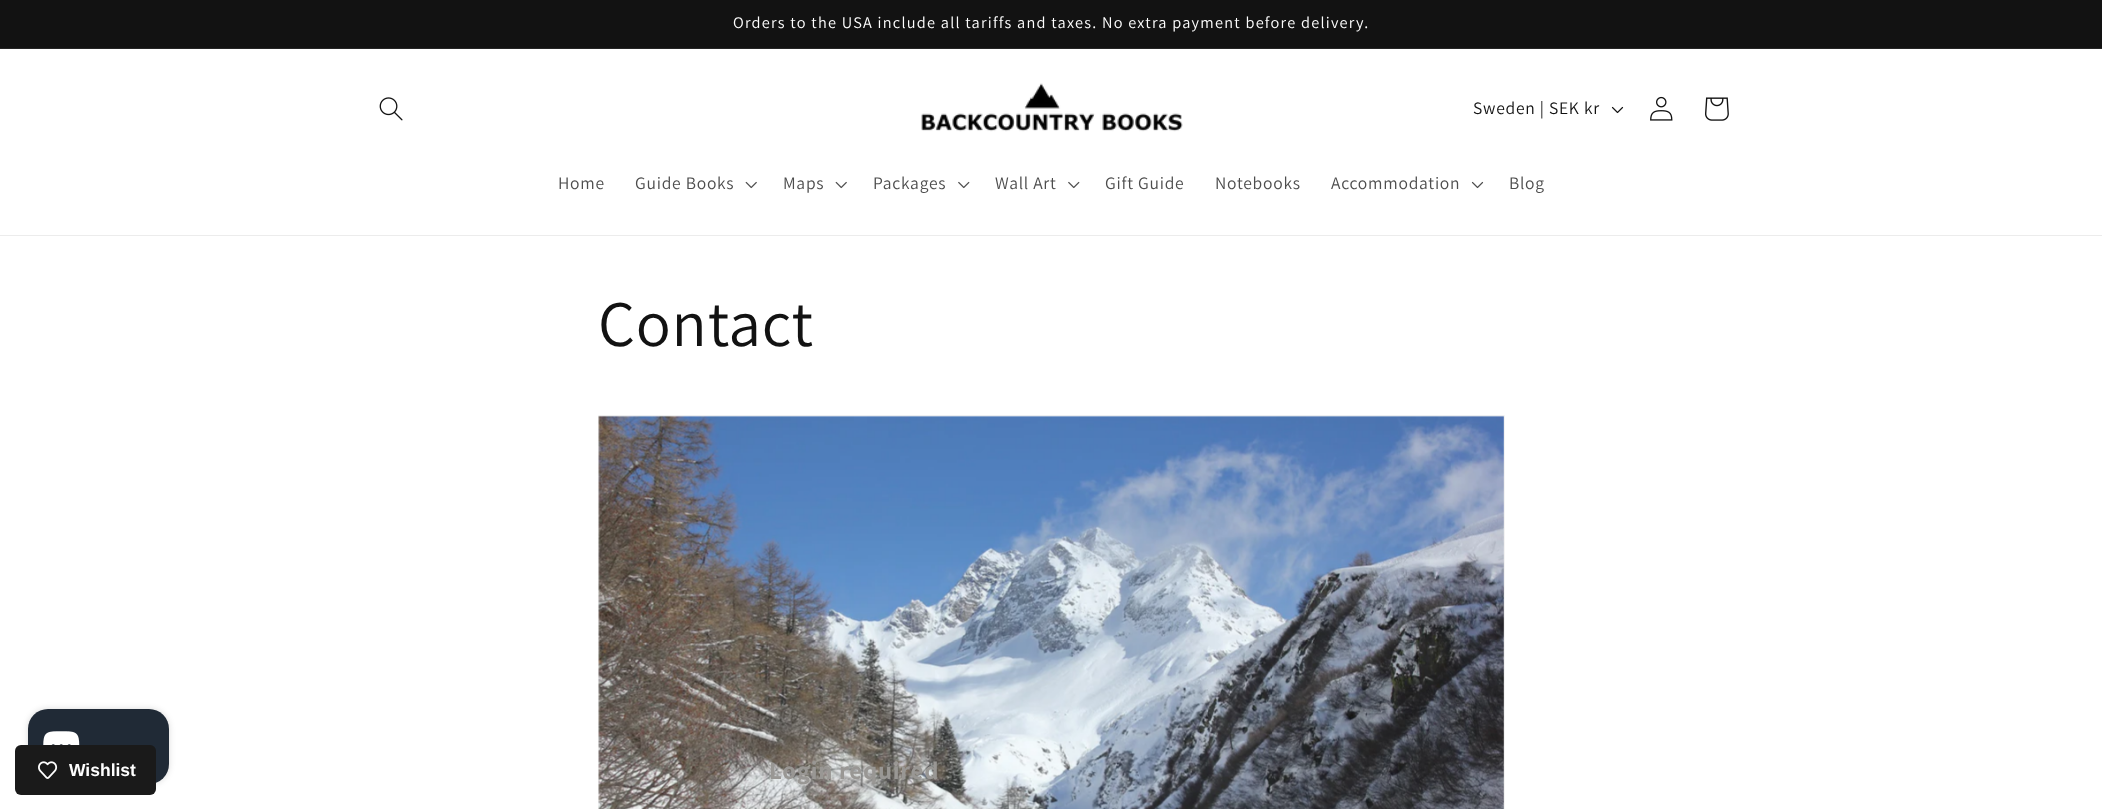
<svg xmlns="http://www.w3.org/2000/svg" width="2102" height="809">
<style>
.a{font:16.25px Assistant;letter-spacing:1.25px;fill:#fff}
.b{font:17.5px Assistant;letter-spacing:0.75px;fill:#121212}
.c{font:17.5px Assistant;letter-spacing:0.75px;fill:#4d4d4d}
.d{font:65px Assistant;letter-spacing:0.75px;fill:#121212}
.e{font:bold 17.5px Liberation Sans;fill:#fff}
.f{font:bold 25px Assistant;letter-spacing:0.75px;fill:#999794}
</style>
<rect width="100%" height="100%" fill="#fff"/>
<path fill="#121212" d="M0 0h2102v48H0z"/>
<path fill="#252525" d="M0 48h2102v1H0z"/>
<path fill="#ececec" d="M0 235h2102v1H0z"/>
<image href="1.png" x="379" y="97" width="24" height="24"/>
<image href="2.png" x="921" y="83" width="262" height="49"/>
<image href="3.png" x="1611" y="106" width="13" height="8"/>
<image href="4.png" x="1650" y="96" width="23" height="25"/>
<image href="5.png" x="1705" y="97" width="24" height="24"/>
<image href="6.png" x="745" y="181" width="12" height="8"/>
<image href="6.png" x="835" y="181" width="12" height="8"/>
<image href="7.png" x="958" y="181" width="12" height="8"/>
<image href="7.png" x="1068" y="181" width="12" height="8"/>
<image href="8.png" x="1471" y="181" width="13" height="8"/>
<path fill="none" stroke="#f3f3f3" d="M598.5 415.5h906v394H598.5z"/>
<image href="9.png" x="598" y="415" width="906" height="394"/>
<rect fill="#00000026" filter="blur(3px)" x="28" y="709" width="141" height="75" rx="20"/>
<rect fill="#202a36" x="28" y="709" width="141" height="75" rx="20"/>
<image href="10.png" x="43" y="731" width="37" height="14"/>
<rect fill="#1a1a1a" x="15" y="745" width="141" height="50" rx="6"/>
<image href="11.png" x="38" y="761" width="20" height="18"/>
<text class="a" x="733" y="28">Orders to the USA include all tariffs and taxes. No extra payment before delivery.</text>
<text class="b" x="1473" y="114">Sweden | SEK kr</text>
<text class="c" x="558" y="189">Home</text>
<text class="c" x="635" y="189">Guide Books</text>
<text class="c" x="783" y="189">Maps</text>
<text class="c" x="873" y="189">Packages</text>
<text class="c" x="995" y="189">Wall Art</text>
<text class="c" x="1105" y="189">Gift Guide</text>
<text class="c" x="1215" y="189">Notebooks</text>
<text class="c" x="1331" y="189">Accommodation</text>
<text class="c" x="1509" y="189">Blog</text>
<text class="d" x="598" y="346">Contact</text>
<text class="e" x="69" y="776">Wishlist</text>
<text class="f" x="769" y="779">Login required</text>
</svg>
